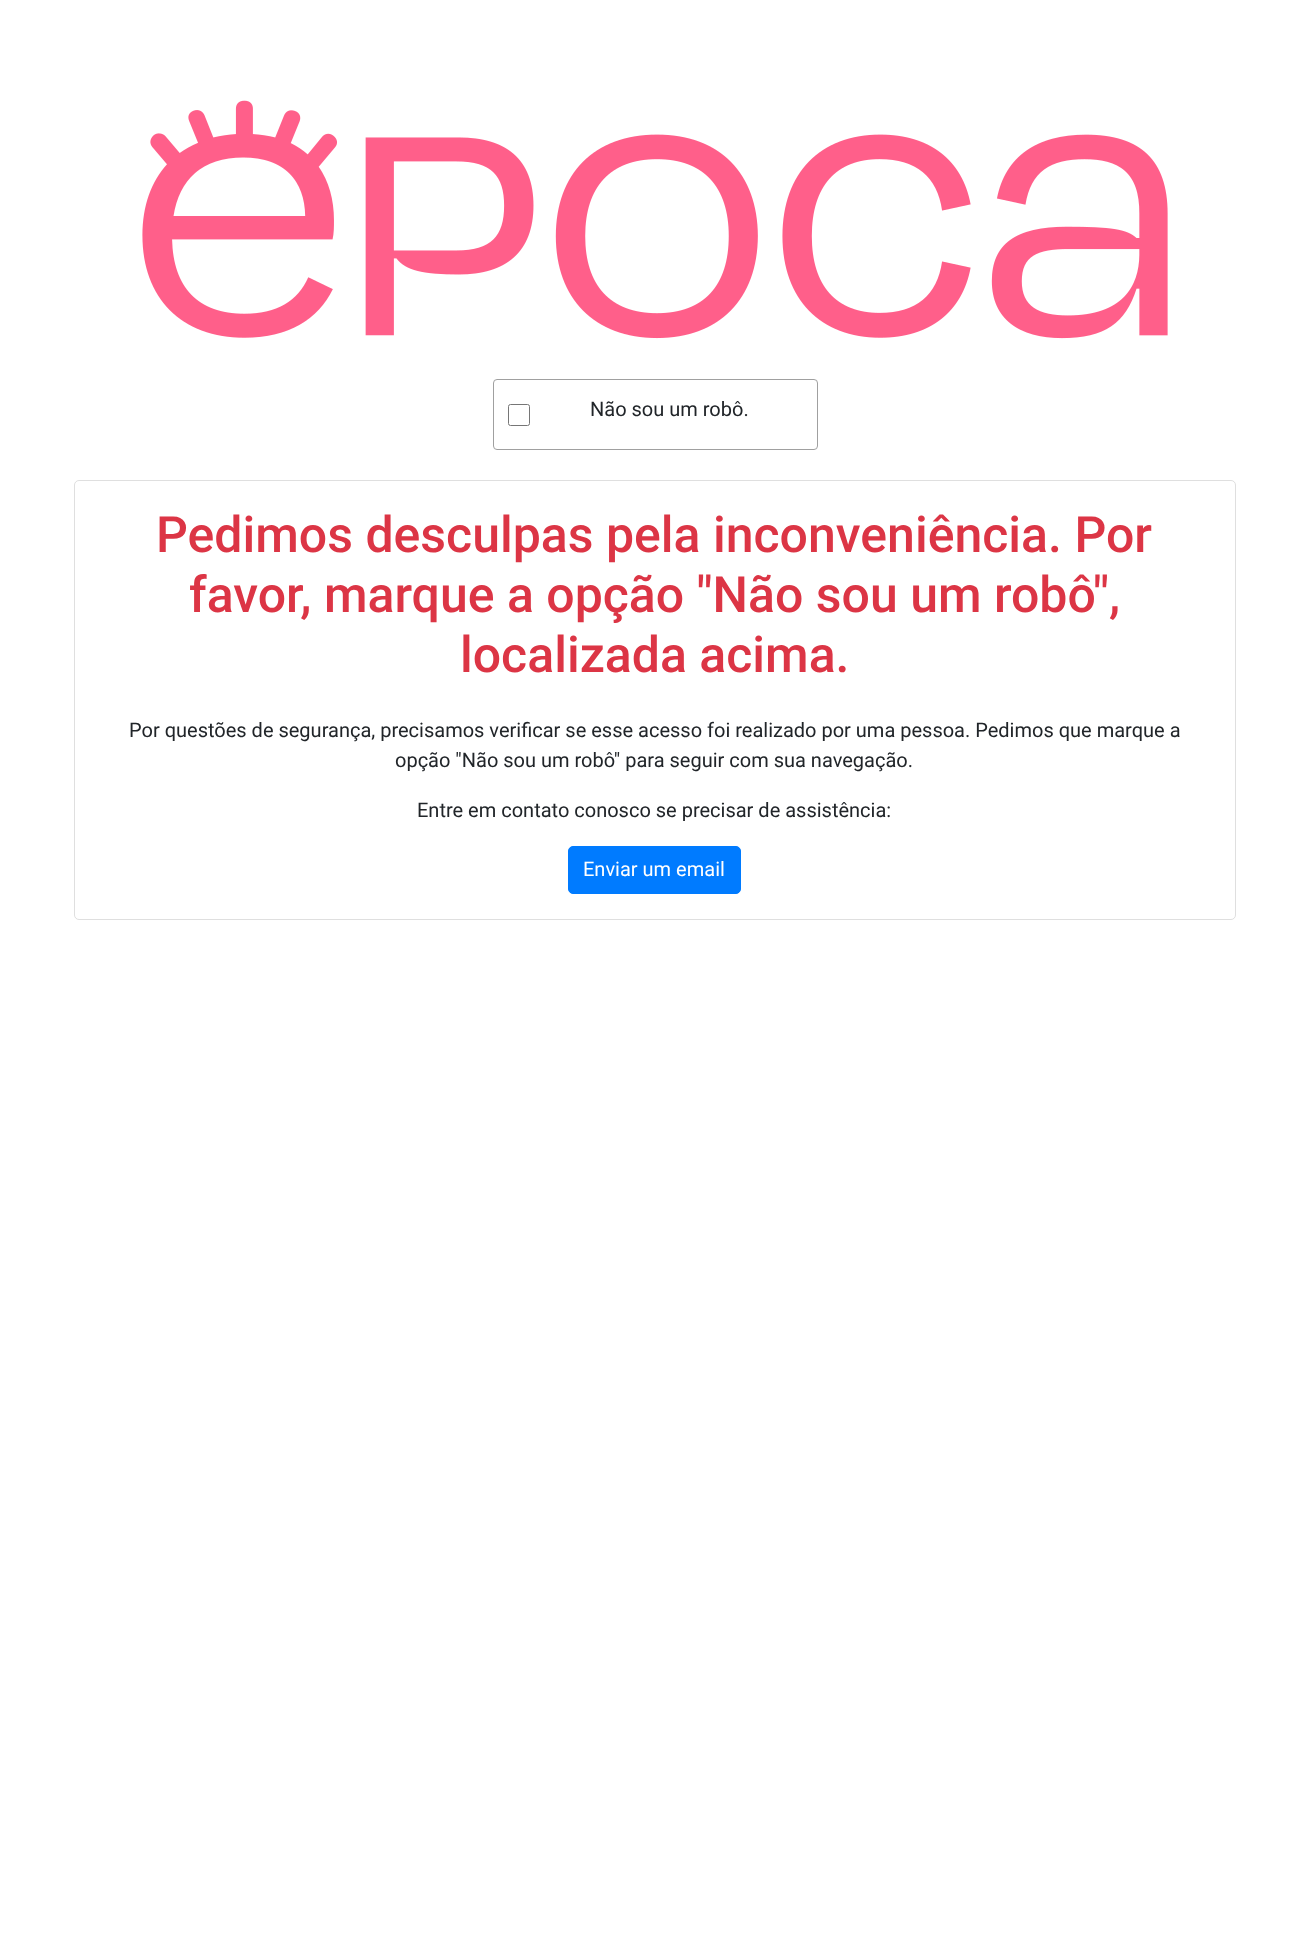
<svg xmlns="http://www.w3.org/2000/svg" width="1308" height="1942">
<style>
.a{font:20px Roboto;fill:#212529}
.b{font:500 50px Roboto;fill:#dc3545}
.c{font:20px Roboto;fill:#fff}
</style>
<rect width="100%" height="100%" fill="#fff"/>
<image href="1.png" x="142" y="100" width="1026" height="239"/>
<rect fill="none" stroke="#a0a0a0" x="493.5" y="379.5" width="324" height="70" rx="3.5"/>
<rect fill="none" stroke="#767676" x="508.5" y="404.5" width="21" height="21" rx="2"/>
<rect fill="none" stroke="#dfdfdf" x="74.5" y="480.5" width="1161" height="439" rx="4.5"/>
<rect fill="#007bff" stroke="#007bff" x="568.5" y="846.5" width="172" height="47" rx="4.5"/>
<text class="a" x="590" y="416">Não sou um robô.</text>
<text class="b" x="156" y="552">Pedimos desculpas pela inconveniência. Por</text>
<text class="b" x="189" y="612">favor, marque a opção "Não sou um robô",</text>
<text class="b" x="460" y="672">localizada acima.</text>
<text class="a" x="129" y="737">Por questões de segurança, precisamos verificar se esse acesso foi realizado por uma pessoa. Pedimos que marque a</text>
<text class="a" x="395" y="767">opção "Não sou um robô" para seguir com sua navegação.</text>
<text class="a" x="417" y="817">Entre em contato conosco se precisar de assistência:</text>
<text class="c" x="583" y="876">Enviar um email</text>
</svg>
